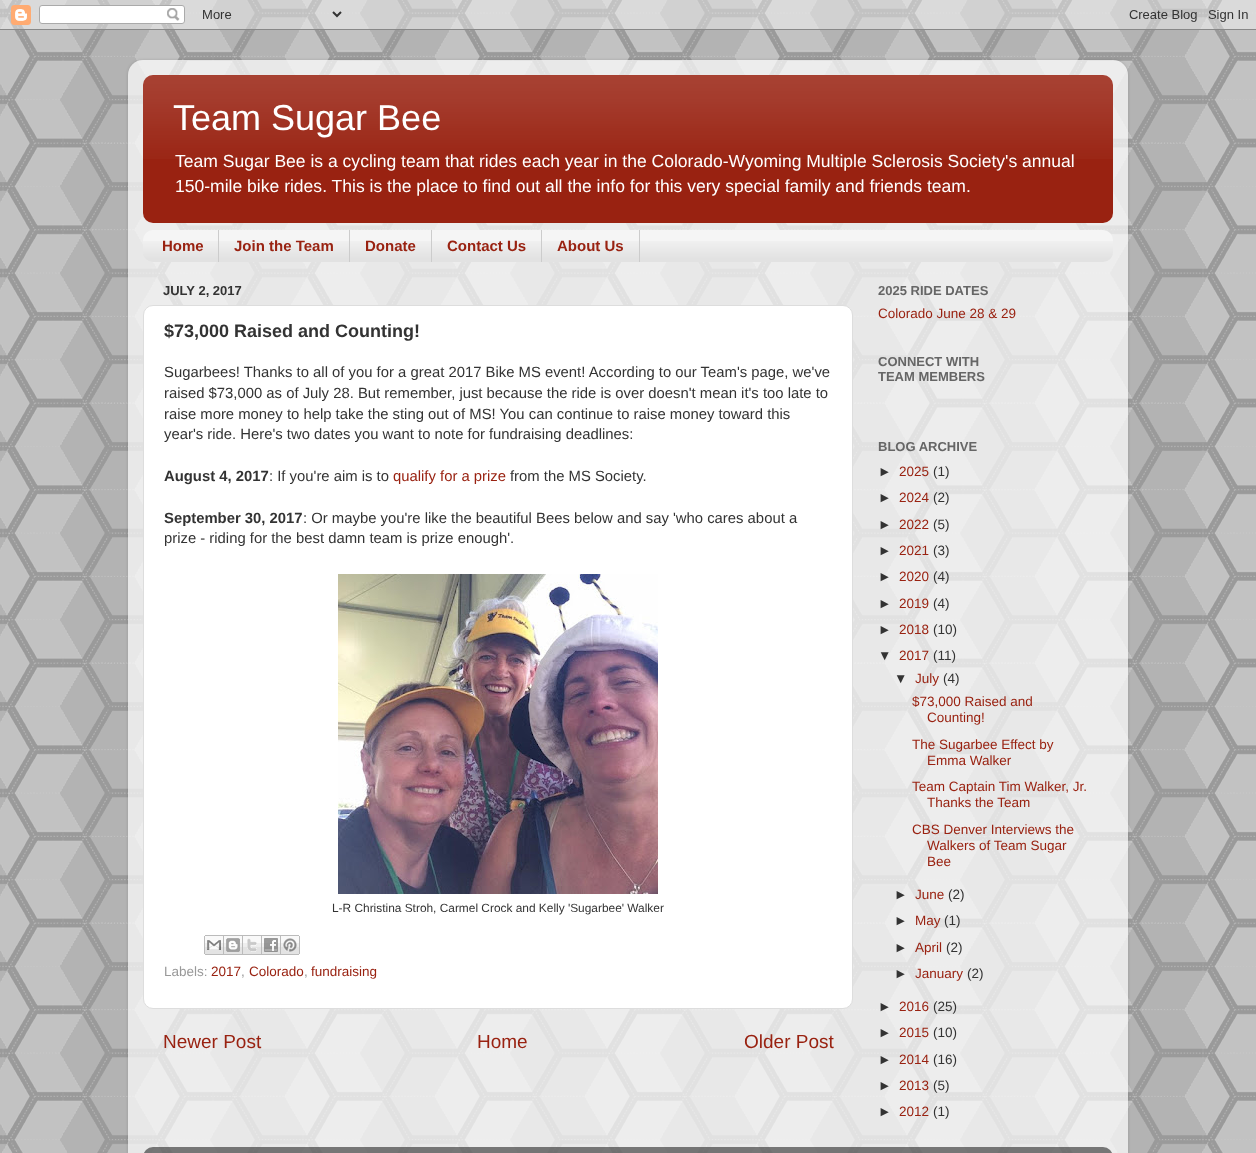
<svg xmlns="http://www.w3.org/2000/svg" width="1256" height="1153">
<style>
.a{font:36px Liberation Sans;fill:#fff}
.b{font:17.55px Liberation Sans;fill:#fff}
.c{font:bold 15px Liberation Sans;fill:#921}
.d{font:bold 13px Liberation Sans;fill:#333}
.e{font:bold 18px Liberation Sans;fill:#333}
.f{font:14.85px Liberation Sans;fill:#333}
.g{font:bold 14.85px Liberation Sans;fill:#333}
.h{font:14.85px Liberation Sans;fill:#921}
.i{font:11.9px Liberation Sans;fill:#333}
.j{font:13.5px Liberation Sans;fill:#999}
.k{font:13.5px Liberation Sans;fill:#921}
.l{font:19px Liberation Sans;fill:#921}
.m{font:bold 13px Liberation Sans;fill:#666}
.n{font:13.5px Liberation Sans;fill:#333}
</style>
<defs>
<clipPath id="clip1"><path d="M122 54h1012v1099h-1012zm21 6h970c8.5 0 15 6.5 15 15v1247c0 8.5-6.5 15-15 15h-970c-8.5 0-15-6.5-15-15v-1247c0-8.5 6.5-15 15-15z" clip-rule="evenodd"/></clipPath>
</defs>
<rect width="100%" height="100%" fill="#ddd"/>
<image href="1.png" x="0" y="0" width="1256" height="1153"/>
<image href="2.png" x="0" y="0" width="1256" height="30"/>
<g clip-path="url(#clip1)">
<rect fill="#00000026" filter="blur(1.5px)" x="128" y="60" width="1000" height="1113" rx="15"/>
</g>
<image href="3.png" x="128" y="60" width="1000" height="1093"/>
<rect fill="#921" x="143" y="75" width="970" height="148" rx="10"/>
<image href="4.png" x="143" y="75" width="970" height="84"/>
<rect fill="#f5f5f5" x="143" y="230" width="970" height="32" rx="10"/>
<image href="5.png" x="143" y="241" width="970" height="21"/>
<path fill="#ccc" d="M218 230h1v32H218z"/>
<path fill="#ccc" d="M349 230h1v32H349z"/>
<path fill="#ccc" d="M431 230h1v32H431z"/>
<path fill="#ccc" d="M541 230h1v32H541z"/>
<path fill="#ccc" d="M639 230h1v32H639z"/>
<rect fill="#fff" stroke="#ddd" x="143.5" y="305.5" width="709" height="703" rx="9.5"/>
<image href="6.png" x="338" y="574" width="320" height="320"/>
<image href="7.png" x="204" y="935" width="20" height="20"/>
<image href="8.png" x="224" y="935" width="19" height="20"/>
<image href="9.png" x="243" y="935" width="19" height="20"/>
<image href="10.png" x="262" y="935" width="19" height="20"/>
<image href="11.png" x="281" y="935" width="19" height="20"/>
<image href="12.png" x="144" y="1147" width="968" height="6"/>
<text class="a" x="173" y="130">Team Sugar Bee</text>
<text class="b" x="175" y="167">Team Sugar Bee is a cycling team that rides each year in the Colorado-Wyoming Multiple Sclerosis Society's annual</text>
<text class="b" x="175" y="192">150-mile bike rides. This is the place to find out all the info for this very special family and friends team.</text>
<text class="c" x="162" y="251">Home</text>
<text class="c" x="234" y="251">Join the Team</text>
<text class="c" x="365" y="251">Donate</text>
<text class="c" x="447" y="251">Contact Us</text>
<text class="c" x="557" y="251">About Us</text>
<text class="d" x="163" y="295">JULY 2, 2017</text>
<text class="e" x="164" y="337">$73,000 Raised and Counting!</text>
<text class="f" x="164" y="377">Sugarbees! Thanks to all of you for a great 2017 Bike MS event! According to our Team's page, we've</text>
<text class="f" x="164" y="398">raised $73,000 as of July 28. But remember, just because the ride is over doesn't mean it's too late to</text>
<text class="f" x="164" y="419">raise more money to help take the sting out of MS! You can continue to raise money toward this</text>
<text class="f" x="164" y="439">year's ride. Here's two dates you want to note for fundraising deadlines:</text>
<text class="g" x="164" y="481">August 4, 2017</text>
<text class="f" x="269" y="481">: If you're aim is to</text>
<text class="h" x="393" y="481">qualify for a prize</text>
<text class="f" x="510" y="481">from the MS Society.</text>
<text class="g" x="164" y="523">September 30, 2017</text>
<text class="f" x="303" y="523">: Or maybe you're like the beautiful Bees below and say 'who cares about a</text>
<text class="f" x="164" y="543">prize - riding for the best damn team is prize enough'.</text>
<text class="i" x="332" y="912">L-R Christina Stroh, Carmel Crock and Kelly 'Sugarbee' Walker</text>
<text class="j" x="164" y="976">Labels:</text>
<text class="k" x="211" y="976">2017</text>
<text class="j" x="241" y="976">,</text>
<text class="k" x="249" y="976">Colorado</text>
<text class="j" x="304" y="976">,</text>
<text class="k" x="311" y="976">fundraising</text>
<text class="l" x="163" y="1048">Newer Post</text>
<text class="l" x="477" y="1048">Home</text>
<text class="l" x="744" y="1048">Older Post</text>
<text class="m" x="878" y="295">2025 RIDE DATES</text>
<text class="k" x="878" y="318">Colorado June 28 &amp; 29</text>
<text class="m" x="878" y="366">CONNECT WITH</text>
<text class="m" x="878" y="381">TEAM MEMBERS</text>
<text class="m" x="878" y="451">BLOG ARCHIVE</text>
<text class="n" x="878" y="476">►</text>
<text class="k" x="899" y="476">2025</text>
<text class="n" x="933" y="476">(1)</text>
<text class="n" x="878" y="502">►</text>
<text class="k" x="899" y="502">2024</text>
<text class="n" x="933" y="502">(2)</text>
<text class="n" x="878" y="529">►</text>
<text class="k" x="899" y="529">2022</text>
<text class="n" x="933" y="529">(5)</text>
<text class="n" x="878" y="555">►</text>
<text class="k" x="899" y="555">2021</text>
<text class="n" x="933" y="555">(3)</text>
<text class="n" x="878" y="581">►</text>
<text class="k" x="899" y="581">2020</text>
<text class="n" x="933" y="581">(4)</text>
<text class="n" x="878" y="608">►</text>
<text class="k" x="899" y="608">2019</text>
<text class="n" x="933" y="608">(4)</text>
<text class="n" x="878" y="634">►</text>
<text class="k" x="899" y="634">2018</text>
<text class="n" x="933" y="634">(10)</text>
<text class="n" x="878" y="660">▼</text>
<text class="k" x="899" y="660">2017</text>
<text class="n" x="933" y="660">(11)</text>
<text class="n" x="894" y="683">▼</text>
<text class="k" x="915" y="683">July</text>
<text class="n" x="943" y="683">(4)</text>
<text class="k" x="912" y="706">$73,000 Raised and</text>
<text class="k" x="927" y="722">Counting!</text>
<text class="k" x="912" y="749">The Sugarbee Effect by</text>
<text class="k" x="927" y="765">Emma Walker</text>
<text class="k" x="912" y="791">Team Captain Tim Walker, Jr.</text>
<text class="k" x="927" y="807">Thanks the Team</text>
<text class="k" x="912" y="834">CBS Denver Interviews the</text>
<text class="k" x="927" y="850">Walkers of Team Sugar</text>
<text class="k" x="927" y="866">Bee</text>
<text class="n" x="894" y="899">►</text>
<text class="k" x="915" y="899">June</text>
<text class="n" x="948" y="899">(2)</text>
<text class="n" x="894" y="925">►</text>
<text class="k" x="915" y="925">May</text>
<text class="n" x="944" y="925">(1)</text>
<text class="n" x="894" y="952">►</text>
<text class="k" x="915" y="952">April</text>
<text class="n" x="946" y="952">(2)</text>
<text class="n" x="894" y="978">►</text>
<text class="k" x="915" y="978">January</text>
<text class="n" x="967" y="978">(2)</text>
<text class="n" x="878" y="1011">►</text>
<text class="k" x="899" y="1011">2016</text>
<text class="n" x="933" y="1011">(25)</text>
<text class="n" x="878" y="1037">►</text>
<text class="k" x="899" y="1037">2015</text>
<text class="n" x="933" y="1037">(10)</text>
<text class="n" x="878" y="1064">►</text>
<text class="k" x="899" y="1064">2014</text>
<text class="n" x="933" y="1064">(16)</text>
<text class="n" x="878" y="1090">►</text>
<text class="k" x="899" y="1090">2013</text>
<text class="n" x="933" y="1090">(5)</text>
<text class="n" x="878" y="1116">►</text>
<text class="k" x="899" y="1116">2012</text>
<text class="n" x="933" y="1116">(1)</text>
</svg>
